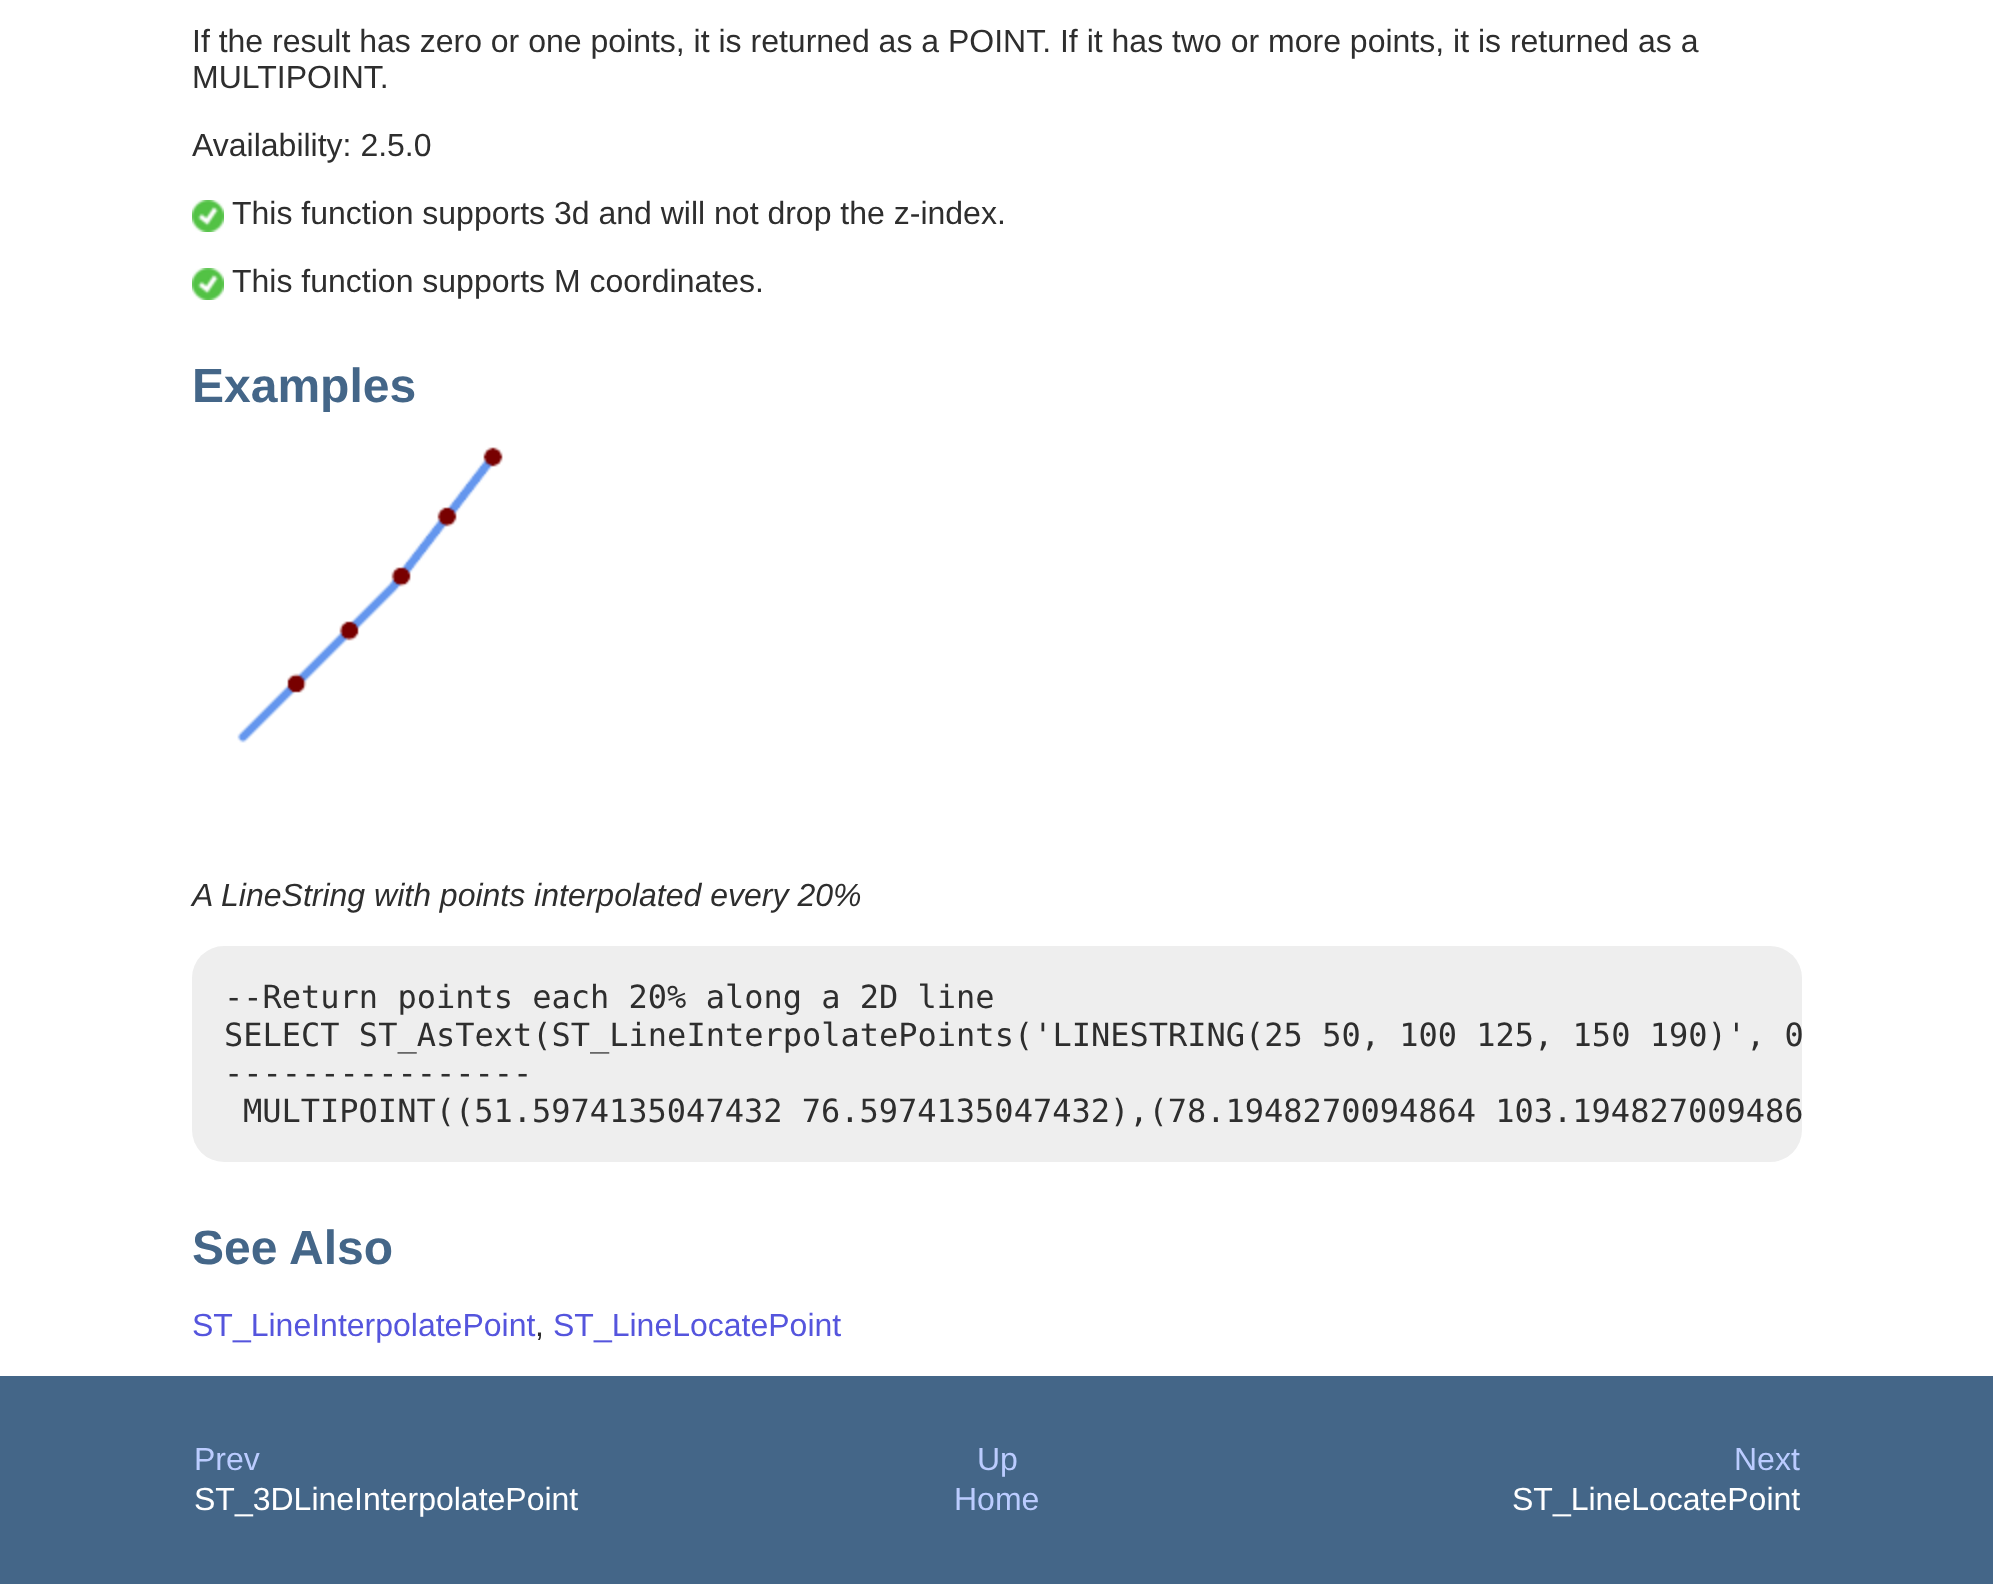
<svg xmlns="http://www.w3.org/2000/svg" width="1993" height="1584">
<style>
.a{font:32px Liberation Sans;fill:#2e2e2e}
.b{font:bold 48px Liberation Sans;fill:#468}
.c{font:italic 32px Liberation Sans;fill:#2e2e2e}
.d{font:32px DejaVu Sans Mono;fill:#2e2e2e}
.e{font:32px Liberation Sans;fill:#55d}
.f{font:32px Liberation Sans;fill:#bcf}
.g{font:32px Liberation Sans;fill:#fff}
</style>
<rect width="100%" height="100%" fill="#fff"/>
<image href="1.png" x="192" y="200" width="32" height="32"/>
<image href="1.png" x="192" y="268" width="32" height="32"/>
<image href="2.png" x="237" y="447" width="266" height="296"/>
<rect fill="#eee" x="192" y="946" width="1610" height="216" rx="32"/>
<path fill="#468" d="M0 1376h1993v208H0z"/>
<text class="a" x="192" y="52">If the result has zero or one points, it is returned as a POINT. If it has two or more points, it is returned as a</text>
<text class="a" x="192" y="88">MULTIPOINT.</text>
<text class="a" x="192" y="156">Availability: 2.5.0</text>
<text class="a" x="232" y="224">This function supports 3d and will not drop the z-index.</text>
<text class="a" x="232" y="292">This function supports M coordinates.</text>
<text class="b" x="192" y="402">Examples</text>
<text class="c" x="192" y="906">A LineString with points interpolated every 20%</text>
<text class="d" x="224" y="1008">--Return points each 20% along a 2D line</text>
<text class="d" x="224" y="1046">SELECT ST_AsText(ST_LineInterpolatePoints('LINESTRING(25 50, 100 125, 150 190)', 0</text>
<text class="d" x="224" y="1084">----------------</text>
<text class="d" x="243" y="1122">MULTIPOINT((51.5974135047432 76.5974135047432),(78.1948270094864 103.194827009486</text>
<text class="b" x="192" y="1264">See Also</text>
<text class="e" x="192" y="1336">ST_LineInterpolatePoint</text>
<text class="a" x="535" y="1336">,</text>
<text class="e" x="553" y="1336">ST_LineLocatePoint</text>
<text class="f" x="194" y="1470">Prev</text>
<text class="f" x="977" y="1470">Up</text>
<text class="f" x="1734" y="1470">Next</text>
<text class="g" x="194" y="1510">ST_3DLineInterpolatePoint</text>
<text class="f" x="954" y="1510">Home</text>
<text class="g" x="1512" y="1510">ST_LineLocatePoint</text>
</svg>
